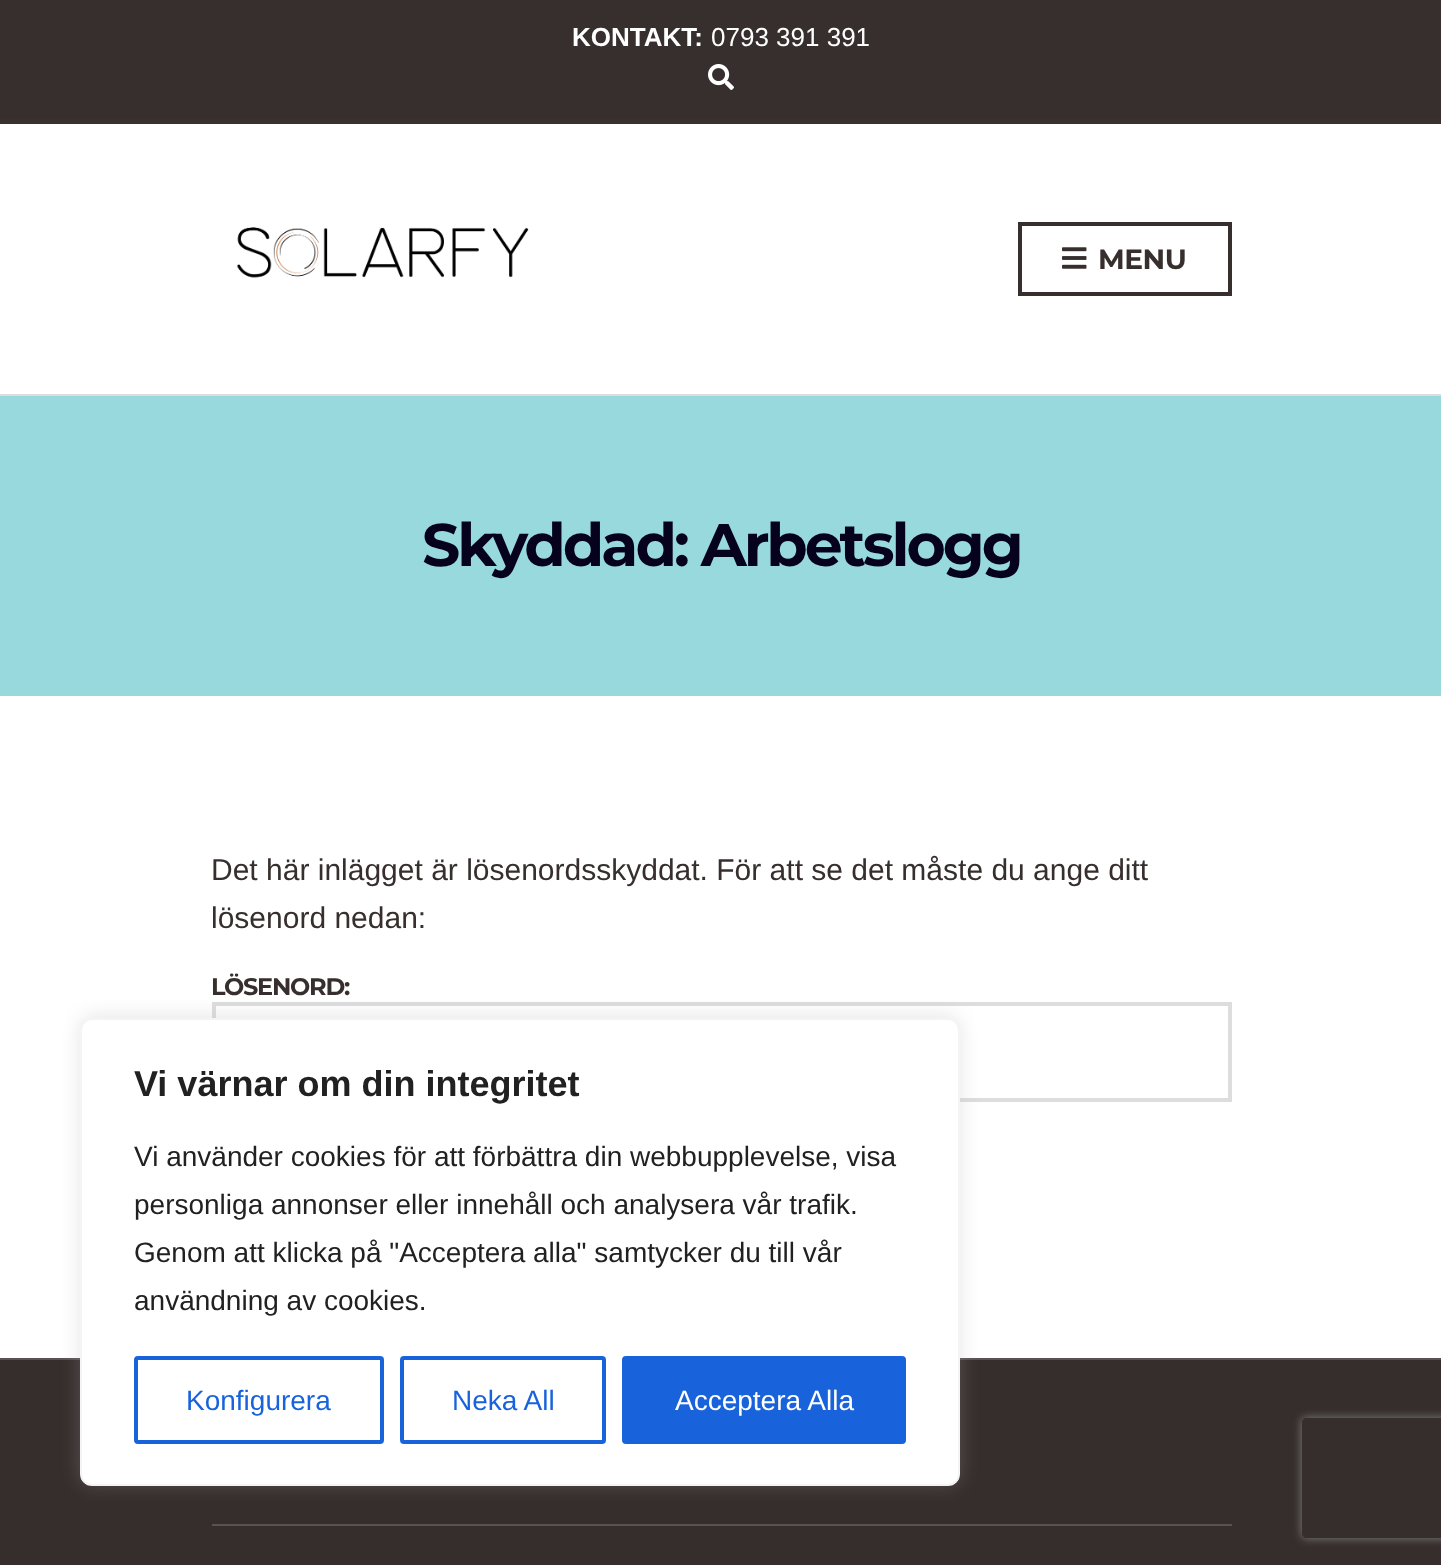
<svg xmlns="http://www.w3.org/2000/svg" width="1441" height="1565">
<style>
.a{font:bold 26px Liberation Sans;fill:#fff}
.b{font:26px Liberation Sans;fill:#fff}
.c{font:bold 28px Montserrat;letter-spacing:-0.5px;fill:#362f2d}
.d{font:bold 60px Montserrat;letter-spacing:-3px;fill:#06021e}
.e{font:30px Liberation Sans;fill:#362f2d}
.f{font:bold 24px Montserrat;letter-spacing:-1.25px;fill:#362f2d}
.g{font:bold 36px Liberation Sans;fill:#212121}
.h{font:28px Liberation Sans;fill:#212121}
.i{font:28px Liberation Sans;fill:#1863dc}
.j{font:28px Liberation Sans;fill:#fff}
</style>
<defs>
<clipPath id="clip1"><path d="M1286 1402h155v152h-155zm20 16h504c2 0 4 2 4 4v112c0 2-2 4-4 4h-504c-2 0-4-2-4-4v-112c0-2 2-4 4-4z" clip-rule="evenodd"/></clipPath>
</defs>
<rect width="100%" height="100%" fill="#fff"/>
<path fill="#362f2d" d="M0 0h1441v118H0z"/>
<path fill="#38312d" d="M0 118h1441v6H0z"/>
<image href="1.png" x="708" y="64" width="26" height="26"/>
<path fill="#ddd" d="M0 394h1441v2H0z"/>
<image href="2.png" x="237" y="227" width="292" height="51"/>
<path fill="none" stroke="#362f2d" stroke-width="4" d="M1020 224h210v70H1020z"/>
<image href="3.png" x="1062" y="247" width="25" height="22"/>
<path fill="#97d9dd" d="M0 396h1441v300H0z"/>
<path fill="none" stroke="#ddd" stroke-width="4" d="M214 1004h1016v96H214z"/>
<path fill="#362e2d" d="M0 1360h1441v205H0z"/>
<path fill="#585352" d="M0 1358h1441v2H0z"/>
<path fill="#585352" d="M212 1524h1020v2H212z"/>
<rect fill="#acabab4d" filter="blur(10px)" x="80" y="1016" width="880" height="468" rx="12"/>
<rect fill="#fff" stroke="#f4f4f4" stroke-width="2" x="81" y="1019" width="878" height="466" rx="11"/>
<rect fill="none" stroke="#1863dc" stroke-width="4" x="136" y="1358" width="246" height="84" rx="2"/>
<rect fill="none" stroke="#1863dc" stroke-width="4" x="402" y="1358" width="202" height="84" rx="2"/>
<rect fill="#1863dc" stroke="#1863dc" stroke-width="4" x="624" y="1358" width="280" height="84" rx="2"/>
<g clip-path="url(#clip1)">
<rect fill="#808080" filter="blur(5px)" x="1302" y="1418" width="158" height="120" rx="4"/>
</g>
<text class="a" x="572" y="46">KONTAKT:</text>
<text class="b" x="711" y="46">0793 391 391</text>
<text class="c" x="1098" y="269">MENU</text>
<text class="d" x="422" y="566">Skyddad: Arbetslogg</text>
<text class="e" x="211" y="880">Det här inlägget är lösenordsskyddat. För att se det måste du ange ditt</text>
<text class="e" x="211" y="928">lösenord nedan:</text>
<text class="f" x="211" y="995">LÖSENORD:</text>
<text class="g" x="134" y="1096">Vi värnar om din integritet</text>
<text class="h" x="134" y="1166">Vi använder cookies för att förbättra din webbupplevelse, visa</text>
<text class="h" x="134" y="1214">personliga annonser eller innehåll och analysera vår trafik.</text>
<text class="h" x="134" y="1262">Genom att klicka på "Acceptera alla" samtycker du till vår</text>
<text class="h" x="134" y="1310">användning av cookies.</text>
<text class="i" x="186" y="1410">Konfigurera</text>
<text class="i" x="452" y="1410">Neka All</text>
<text class="j" x="675" y="1410">Acceptera Alla</text>
</svg>
